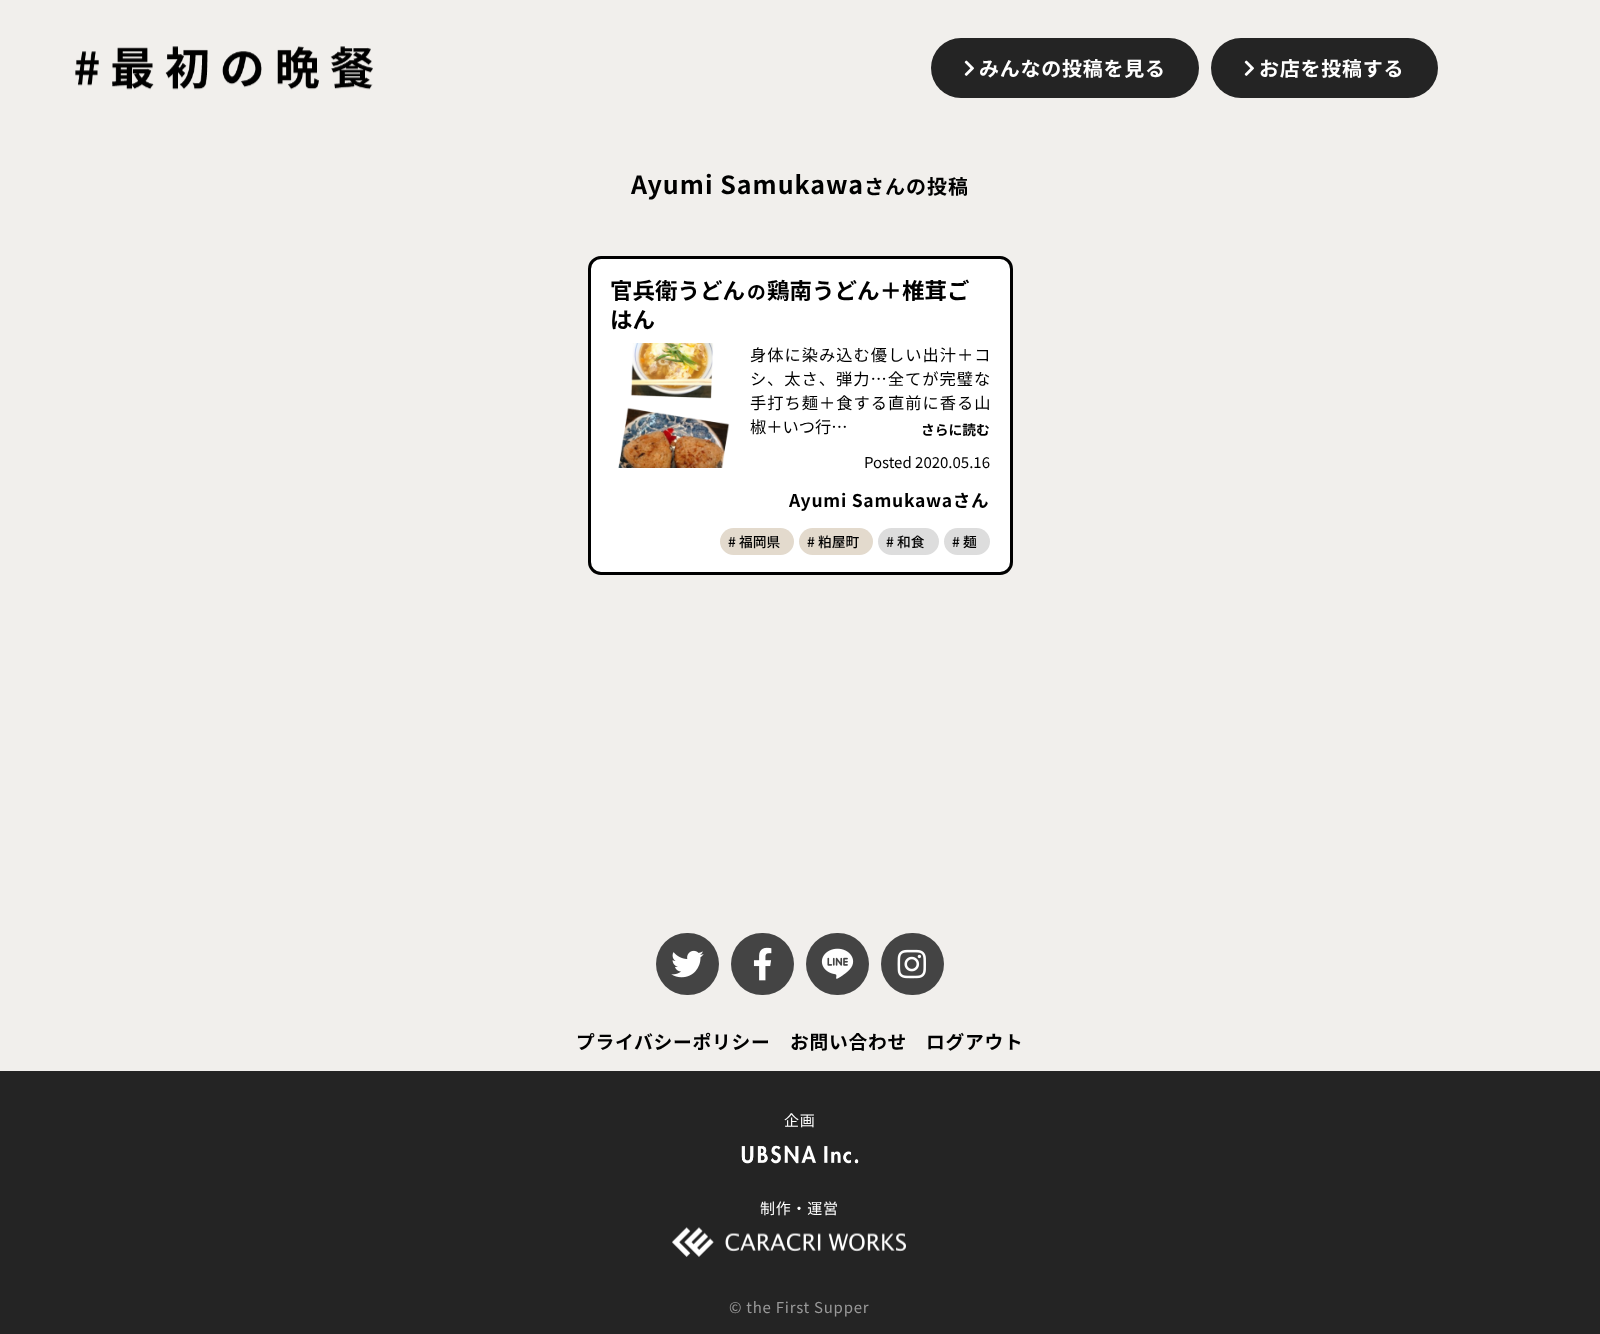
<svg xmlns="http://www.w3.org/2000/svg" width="1600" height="1334">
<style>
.a{font:bold 20px Noto Sans JP;letter-spacing:0.75px;fill:#fff}
.b{font:bold 18.75px Noto Sans JP;letter-spacing:0.75px;fill:#000}
.c{font:15px Noto Sans JP;letter-spacing:0.75px;fill:#fff}
.d{font:15px Noto Sans JP;letter-spacing:0.75px;fill:#999}
.e{font:bold 25px Noto Sans JP;letter-spacing:1px;fill:#000}
.f{font:bold 20px Noto Sans JP;letter-spacing:1px;fill:#000}
.g{font:bold 22.5px Noto Sans JP;fill:#000}
.h{font:bold 18.75px Noto Sans JP;fill:#000}
.i{font:16.25px Noto Sans JP;letter-spacing:1px;fill:#000}
.j{font:16.25px Noto Sans JP;fill:#000}
.k{font:bold 13.75px Noto Sans JP;fill:#000}
.l{font:15px Noto Sans JP;fill:#000}
.m{font:bold 17.5px Noto Sans JP;letter-spacing:0.75px;fill:#000}
.n{font:500 13.75px Noto Sans JP;fill:#000}
</style>
<rect width="100%" height="100%" fill="#f1efec"/>
<image href="1.png" x="75" y="46" width="298" height="44"/>
<rect fill="#242424" x="931" y="38" width="268" height="60" rx="30"/>
<image href="2.png" x="964" y="60" width="10" height="16"/>
<rect fill="#242424" x="1211" y="38" width="227" height="60" rx="30"/>
<image href="2.png" x="1244" y="60" width="10" height="16"/>
<rect fill="#444" x="656" y="933" width="63" height="62" rx="31"/>
<image href="3.png" x="671" y="950" width="33" height="28"/>
<rect fill="#444" x="731" y="933" width="63" height="62" rx="31"/>
<image href="4.png" x="753" y="947" width="19" height="34"/>
<rect fill="#444" x="806" y="933" width="63" height="62" rx="31"/>
<image href="5.png" x="821" y="948" width="33" height="31"/>
<rect fill="#444" x="881" y="933" width="63" height="62" rx="31"/>
<image href="6.png" x="897" y="949" width="29" height="30"/>
<path fill="#242424" d="M0 1071h1600v263H0z"/>
<image href="7.png" x="741" y="1145" width="118" height="19"/>
<image href="8.png" x="672" y="1227" width="234" height="30"/>
<rect fill="#fff" stroke="#000" stroke-width="3" x="589.5" y="257.5" width="422" height="316" rx="11.5"/>
<image href="9.png" x="618" y="343" width="112" height="125"/>
<rect fill="#e3dacd" x="720" y="528" width="74" height="27" rx="13.5"/>
<rect fill="#e3dacd" x="799" y="528" width="74" height="27" rx="13.5"/>
<rect fill="#ddd" x="878" y="528" width="61" height="27" rx="13.5"/>
<rect fill="#ddd" x="944" y="528" width="46" height="27" rx="13.5"/>
<text class="a" x="979" y="76">みんなの投稿を見る</text>
<text class="a" x="1259" y="76">お店を投稿する</text>
<text class="b" x="576" y="1049">プライバシーポリシー</text>
<text class="b" x="790" y="1049">お問い合わせ</text>
<text class="b" x="926" y="1049">ログアウト</text>
<text class="c" x="784" y="1126">企画</text>
<text class="c" x="760" y="1214">制作・運営</text>
<text class="d" x="729" y="1313">© the First Supper</text>
<text class="e" x="631" y="194">Ayumi Samukawa</text>
<text class="f" x="864" y="194">さんの投稿</text>
<text class="g" x="610" y="299">官兵衛うどん</text>
<text class="h" x="747" y="299">の</text>
<text class="g" x="767" y="299">鶏南うどん＋椎茸ご</text>
<text class="g" x="610" y="328">はん</text>
<text class="i" x="750" y="361">身体に染み込む優しい出汁＋コ</text>
<text class="i" x="750" y="385">シ、太さ、弾力…全てが完璧な</text>
<text class="i" x="750" y="409">手打ち麺＋食する直前に香る山</text>
<text class="j" x="750" y="433">椒＋いつ行…</text>
<text class="k" x="921" y="435">さらに読む</text>
<text class="l" x="864" y="468">Posted 2020.05.16</text>
<text class="m" x="789" y="507">Ayumi Samukawaさん</text>
<text class="n" x="728" y="547"># 福岡県</text>
<text class="n" x="807" y="547"># 粕屋町</text>
<text class="n" x="886" y="547"># 和食</text>
<text class="n" x="952" y="547"># 麺</text>
</svg>
